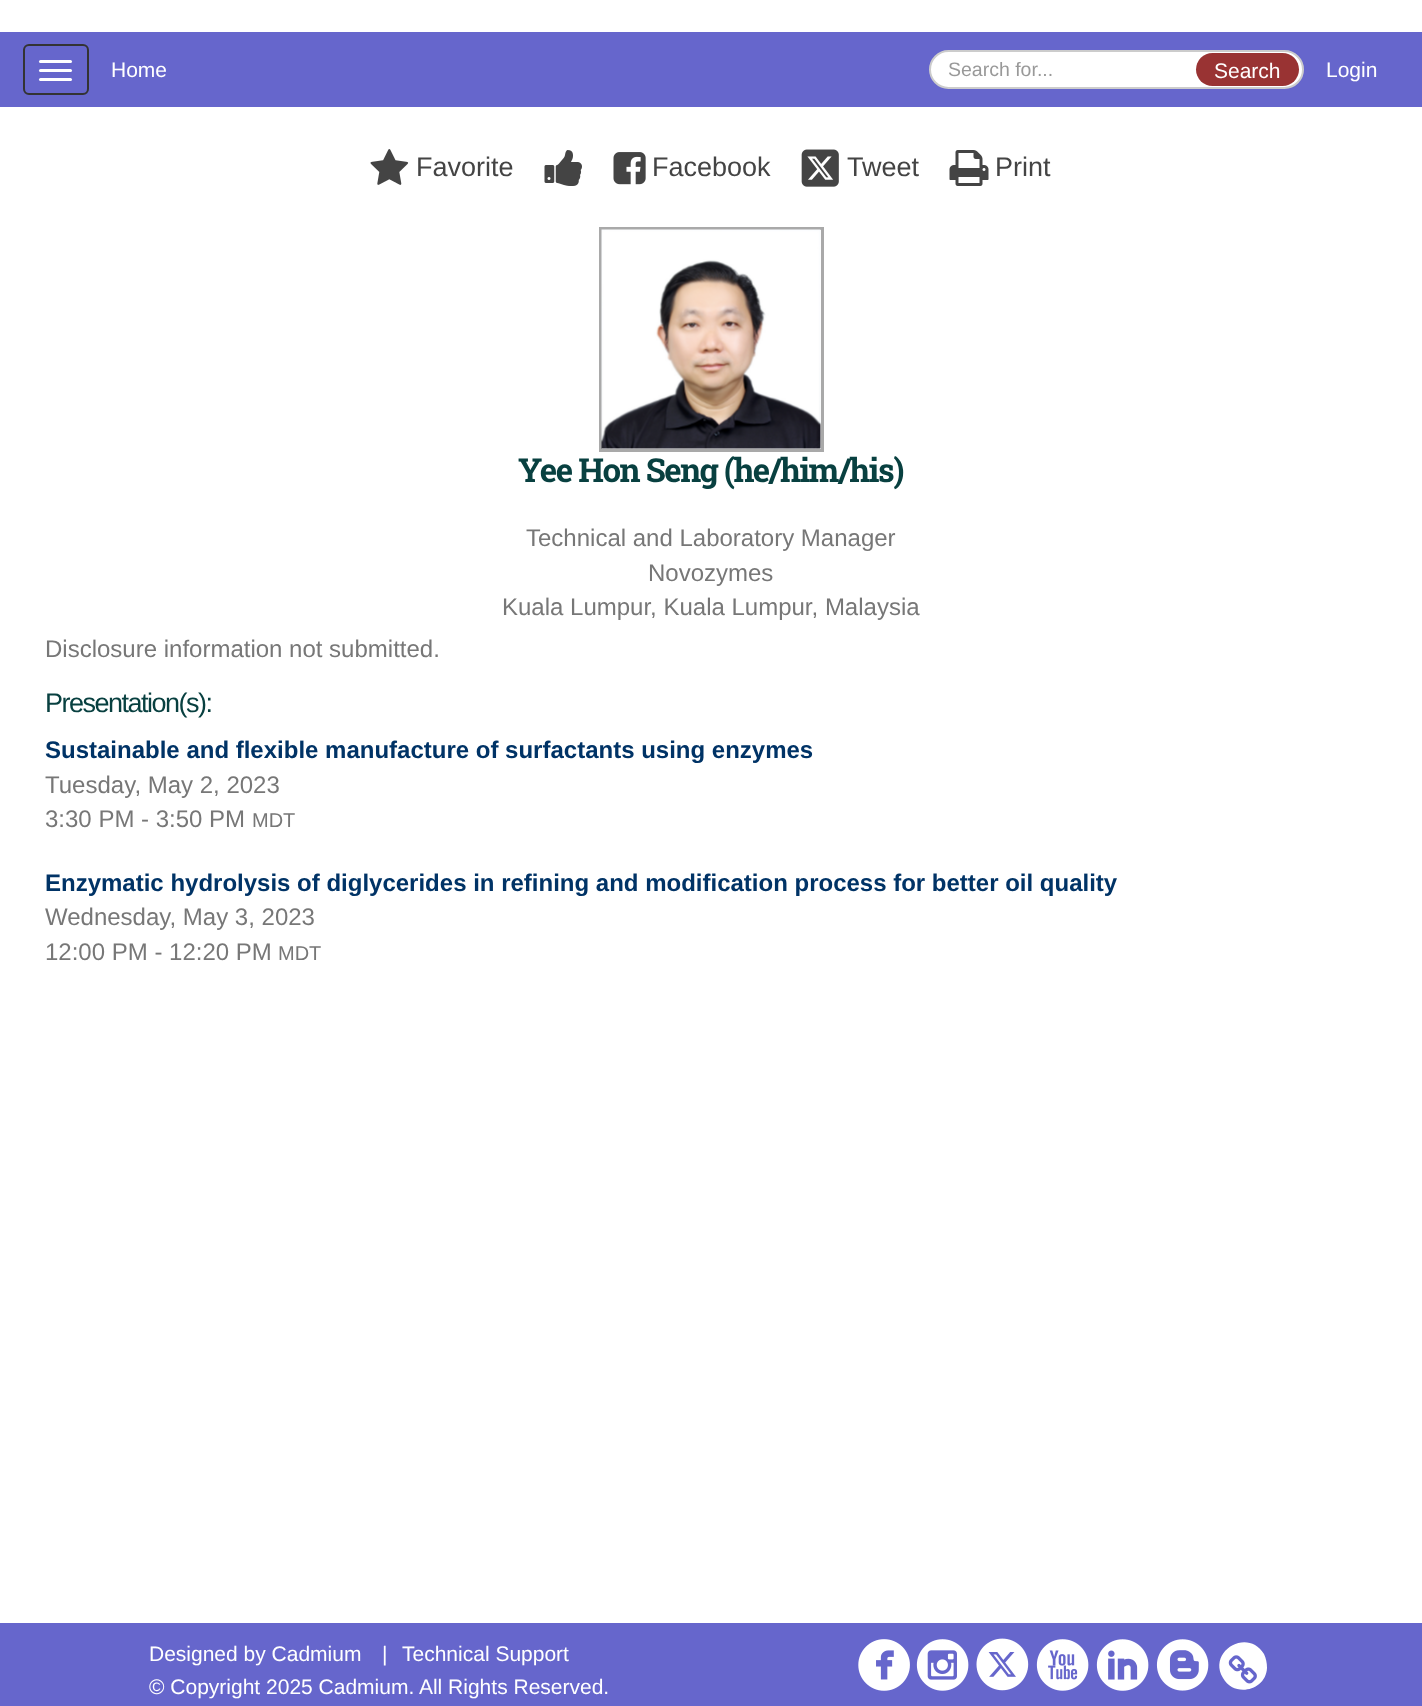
<svg xmlns="http://www.w3.org/2000/svg" width="1422" height="1706">
<style>
.a{font:21px Liberation Sans;fill:#fff}
.b{font:19.5px Liberation Sans;fill:#999}
.c{font:27px Liberation Sans;fill:#444}
.d{font:bold 33px Roboto Slab;letter-spacing:-1.5px;fill:#084040}
.e{font:24px Liberation Sans;fill:#777}
.f{font:27px Liberation Sans;letter-spacing:-1.5px;fill:#084040}
.g{font:bold 24px Liberation Sans;fill:#036}
.h{font:20px Liberation Sans;fill:#777}
</style>
<rect width="100%" height="100%" fill="#fff"/>
<path fill="#66c" d="M0 32h1422v75H0z"/>
<rect fill="none" stroke="#333" stroke-width="2" x="24" y="45" width="64" height="49" rx="5"/>
<rect fill="#fff" x="39" y="60" width="33" height="3" rx="1.5"/>
<rect fill="#fff" x="39" y="69" width="33" height="3" rx="1.5"/>
<rect fill="#fff" x="39" y="78" width="33" height="3" rx="1.5"/>
<rect fill="#fff" stroke="#ccc" stroke-width="2" x="930" y="51" width="373" height="37" rx="18.5"/>
<rect fill="#933" x="1196" y="53" width="103" height="33" rx="16.5"/>
<image href="1.png" x="370" y="149" width="39" height="36"/>
<image href="2.png" x="544" y="150" width="38" height="36"/>
<image href="3.png" x="613" y="152" width="33" height="33"/>
<image href="4.png" x="801" y="149" width="38" height="38"/>
<image href="5.png" x="949" y="150" width="40" height="36"/>
<path fill="none" stroke="#a9a9a9" stroke-width="3" d="M600.5 228.5h222v222H600.5z"/>
<image href="6.png" x="601" y="229" width="220" height="220"/>
<path fill="#66c" d="M0 1623h1422v83H0z"/>
<image href="7.png" x="858" y="1639" width="52" height="52"/>
<image href="8.png" x="916" y="1639" width="53" height="52"/>
<image href="9.png" x="976" y="1638" width="53" height="53"/>
<image href="10.png" x="1036" y="1639" width="53" height="52"/>
<image href="11.png" x="1096" y="1639" width="53" height="52"/>
<image href="12.png" x="1156" y="1639" width="53" height="52"/>
<path fill="#fff" d="M1264 1654c2 4 3 9 3 14c-1 23-33 30-44 10c-16-27 25-51 41-24z"/>
<image href="13.png" x="1228" y="1655" width="29" height="29"/>
<text class="a" x="111" y="77">Home</text>
<text class="b" x="948" y="76">Search for...</text>
<text class="a" x="1214" y="78">Search</text>
<text class="a" x="1326" y="77">Login</text>
<text class="c" x="416" y="176">Favorite</text>
<text class="c" x="652" y="176">Facebook</text>
<text class="c" x="847" y="176">Tweet</text>
<text class="c" x="995" y="176">Print</text>
<text class="d" x="518" y="482">Yee Hon Seng (he/him/his)</text>
<text class="e" x="526" y="546">Technical and Laboratory Manager</text>
<text class="e" x="648" y="581">Novozymes</text>
<text class="e" x="502" y="615">Kuala Lumpur, Kuala Lumpur, Malaysia</text>
<text class="e" x="45" y="657">Disclosure information not submitted.</text>
<text class="f" x="45" y="712">Presentation(s):</text>
<text class="g" x="45" y="758">Sustainable and flexible manufacture of surfactants using enzymes</text>
<text class="e" x="45" y="793">Tuesday, May 2, 2023</text>
<text class="e" x="45" y="827">3:30 PM - 3:50 PM</text>
<text class="h" x="252" y="827">MDT</text>
<text class="g" x="45" y="891">Enzymatic hydrolysis of diglycerides in refining and modification process for better oil quality</text>
<text class="e" x="45" y="925">Wednesday, May 3, 2023</text>
<text class="e" x="45" y="960">12:00 PM - 12:20 PM</text>
<text class="h" x="278" y="960">MDT</text>
<text class="a" x="149" y="1661">Designed by Cadmium</text>
<text class="a" x="382" y="1661">|</text>
<text class="a" x="402" y="1661">Technical Support</text>
<text class="a" x="149" y="1694">© Copyright 2025 Cadmium. All Rights Reserved.</text>
</svg>
